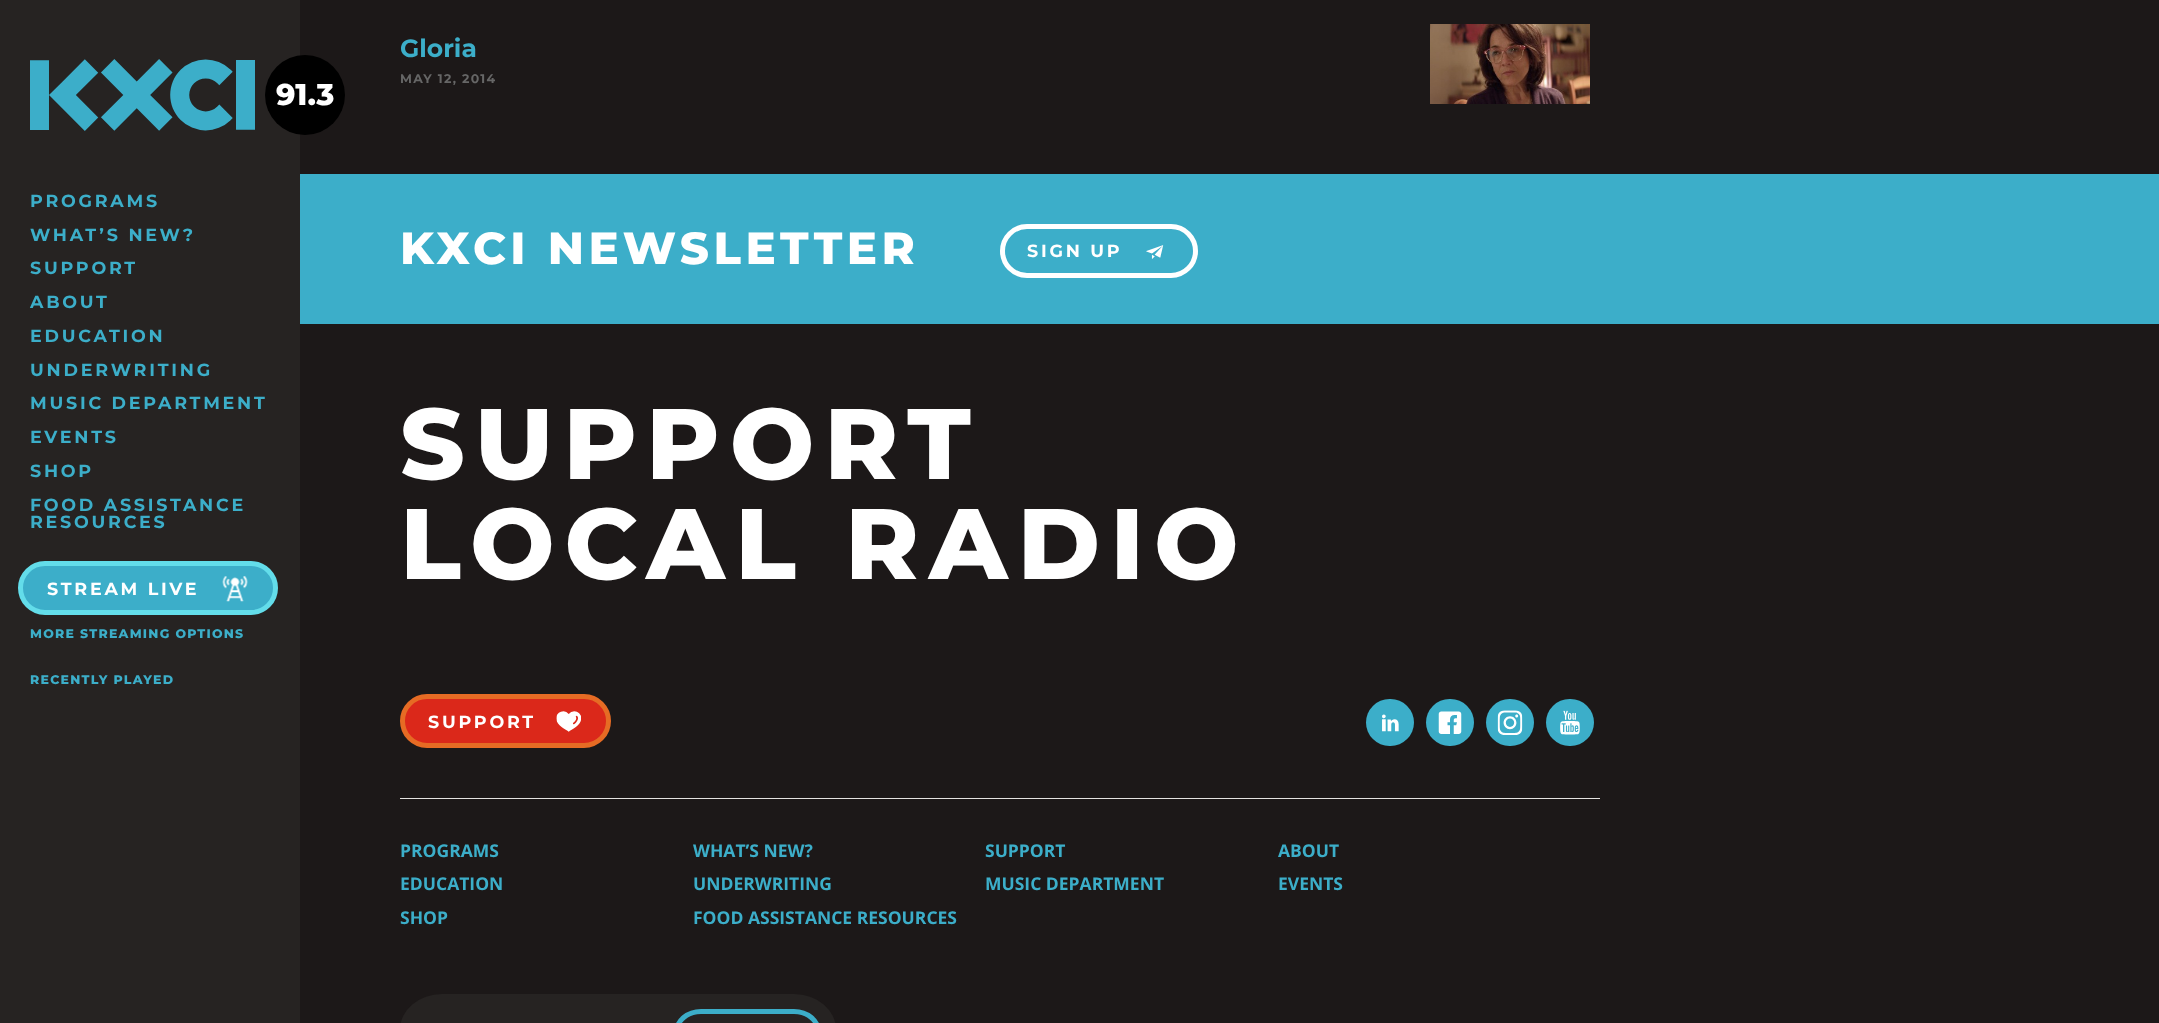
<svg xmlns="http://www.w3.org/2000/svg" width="2159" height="1023">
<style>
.a{font:800 30px Montserrat;fill:#fff}
.b{font:bold 17.5px Montserrat;letter-spacing:2.75px;fill:#3caec9}
.c{font:bold 17.5px Montserrat;letter-spacing:2.75px;fill:#fff}
.d{font:800 12.5px Montserrat;letter-spacing:1.25px;fill:#3caec9}
.e{font:bold 25px Montserrat;fill:#3caec9}
.f{font:bold 12.5px Montserrat;letter-spacing:1.25px;fill:#666}
.g{font:800 45px Montserrat;letter-spacing:4.5px;fill:#fff}
.h{font:800 100px Montserrat;letter-spacing:10px;fill:#fff}
.i{font:bold 17.5px Open Sans;fill:#3caec9}
</style>
<rect width="100%" height="100%" fill="#1c1818"/>
<path fill="#262322" d="M0 0h300v1023H0z"/>
<image href="1.png" x="30" y="59" width="225" height="72"/>
<circle fill="#000" cx="305" cy="95" r="40"/>
<rect fill="#3caec9" stroke="#63ddea" stroke-width="5" x="20.5" y="563.5" width="255" height="49" rx="24.5"/>
<image href="2.png" x="222" y="576" width="26" height="26"/>
<image href="3.png" x="1430" y="24" width="160" height="80"/>
<path fill="#3caec9" d="M300 174h1859v150H300z"/>
<rect fill="none" stroke="#fff" stroke-width="5" x="1002.5" y="226.5" width="193" height="49" rx="24.5"/>
<image href="4.png" x="1146" y="245" width="18" height="14"/>
<rect fill="#db281a" stroke="#e66b24" stroke-width="5" x="402.5" y="696.5" width="206" height="49" rx="24.5"/>
<image href="5.png" x="556" y="711" width="25" height="21"/>
<rect fill="#3caec9" x="1366" y="699" width="48" height="47" rx="23.5"/>
<image href="6.png" x="1382" y="714" width="17" height="18"/>
<rect fill="#3caec9" x="1426" y="699" width="48" height="47" rx="23.5"/>
<image href="7.png" x="1438" y="711" width="24" height="23"/>
<rect fill="#3caec9" x="1486" y="699" width="48" height="47" rx="23.5"/>
<image href="8.png" x="1497" y="710" width="26" height="25"/>
<rect fill="#3caec9" x="1546" y="699" width="48" height="47" rx="23.5"/>
<image href="9.png" x="1560" y="710" width="20" height="25"/>
<path fill="#e4e2e0" d="M400 798h1200v1H400z"/>
<rect fill="#262322" x="400" y="994" width="436" height="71" rx="42"/>
<rect fill="none" stroke="#3caec9" stroke-width="5" x="676.5" y="1011.5" width="142" height="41" rx="24.5"/>
<text class="a" x="276" y="105">91.3</text>
<text class="b" x="30" y="207">PROGRAMS</text>
<text class="b" x="30" y="241">WHAT’S NEW?</text>
<text class="b" x="30" y="274">SUPPORT</text>
<text class="b" x="30" y="308">ABOUT</text>
<text class="b" x="30" y="342">EDUCATION</text>
<text class="b" x="30" y="376">UNDERWRITING</text>
<text class="b" x="30" y="409">MUSIC DEPARTMENT</text>
<text class="b" x="30" y="443">EVENTS</text>
<text class="b" x="30" y="477">SHOP</text>
<text class="b" x="30" y="511">FOOD ASSISTANCE</text>
<text class="b" x="30" y="528">RESOURCES</text>
<text class="c" x="47" y="595">STREAM LIVE</text>
<text class="d" x="30" y="638">MORE STREAMING OPTIONS</text>
<text class="d" x="30" y="684">RECENTLY PLAYED</text>
<text class="e" x="400" y="57">Gloria</text>
<text class="f" x="400" y="83">MAY 12, 2014</text>
<text class="g" x="400" y="264">KXCI NEWSLETTER</text>
<text class="c" x="1027" y="257">SIGN UP</text>
<text class="h" x="400" y="479">SUPPORT</text>
<text class="h" x="400" y="579">LOCAL RADIO</text>
<text class="c" x="428" y="728">SUPPORT</text>
<text class="i" x="400" y="857">PROGRAMS</text>
<text class="i" x="693" y="857">WHAT’S NEW?</text>
<text class="i" x="985" y="857">SUPPORT</text>
<text class="i" x="1278" y="857">ABOUT</text>
<text class="i" x="400" y="890">EDUCATION</text>
<text class="i" x="693" y="890">UNDERWRITING</text>
<text class="i" x="985" y="890">MUSIC DEPARTMENT</text>
<text class="i" x="1278" y="890">EVENTS</text>
<text class="i" x="400" y="924">SHOP</text>
<text class="i" x="693" y="924">FOOD ASSISTANCE RESOURCES</text>
</svg>
